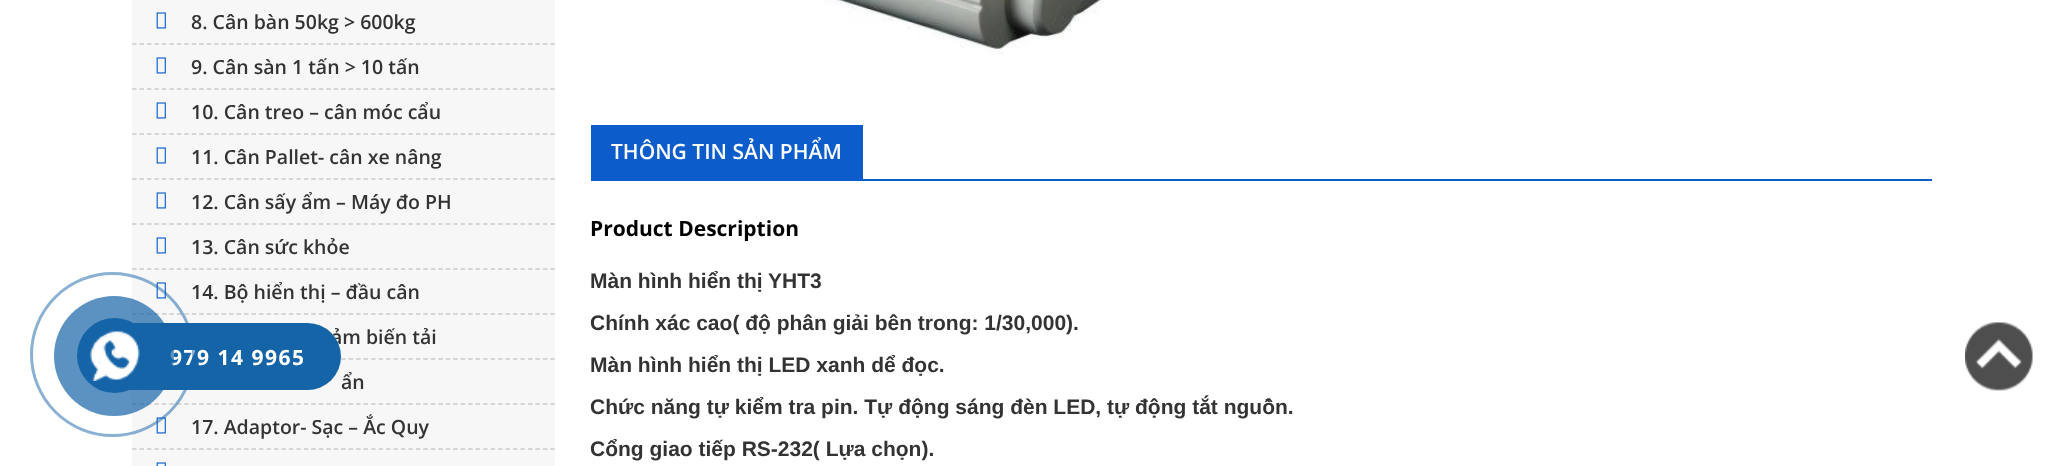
<svg xmlns="http://www.w3.org/2000/svg" width="2062" height="466">
<style>
.a{font:600 19.5px Open Sans;fill:#333}
.b{font:600 21px Open Sans;fill:#fff}
.c{font:bold 21px Open Sans;fill:#000}
.d{font:bold 21px Liberation Sans;fill:#333}
.e{font:bold 21px Open Sans;letter-spacing:1.5px;fill:#fff}
</style>
<rect width="100%" height="100%" fill="#fff"/>
<path fill="#f7f7f7" d="M132 0h423v466H132z"/>
<path fill="none" stroke="#ccc" stroke-width="1.5" stroke-dasharray="4.5 2.97" d="M132 44h423"/>
<image href="1.png" x="156" y="12" width="10" height="17"/>
<path fill="none" stroke="#ccc" stroke-width="1.5" stroke-dasharray="4.5 2.97" d="M132 89h423"/>
<image href="1.png" x="156" y="57" width="10" height="17"/>
<path fill="none" stroke="#ccc" stroke-width="1.5" stroke-dasharray="4.5 2.97" d="M132 134h423"/>
<image href="1.png" x="156" y="102" width="10" height="17"/>
<path fill="none" stroke="#ccc" stroke-width="1.5" stroke-dasharray="4.5 2.97" d="M132 179h423"/>
<image href="1.png" x="156" y="147" width="10" height="17"/>
<path fill="none" stroke="#ccc" stroke-width="1.5" stroke-dasharray="4.5 2.97" d="M132 224h423"/>
<image href="1.png" x="156" y="192" width="10" height="17"/>
<path fill="none" stroke="#ccc" stroke-width="1.5" stroke-dasharray="4.5 2.97" d="M132 269h423"/>
<image href="1.png" x="156" y="237" width="10" height="17"/>
<path fill="none" stroke="#ccc" stroke-width="1.5" stroke-dasharray="4.5 2.97" d="M132 314h423"/>
<image href="1.png" x="156" y="282" width="10" height="17"/>
<path fill="none" stroke="#ccc" stroke-width="1.5" stroke-dasharray="4.5 2.97" d="M132 359h423"/>
<path fill="none" stroke="#ccc" stroke-width="1.5" stroke-dasharray="4.5 2.97" d="M132 404h423"/>
<path fill="none" stroke="#ccc" stroke-width="1.5" stroke-dasharray="4.5 2.97" d="M132 449h423"/>
<image href="1.png" x="156" y="417" width="10" height="17"/>
<image href="2.png" x="156" y="462" width="10" height="4"/>
<image href="3.png" x="823" y="0" width="283" height="55"/>
<path fill="#0c5ccb" d="M591 179h1341v2H591z"/>
<path fill="#0c5ccb" d="M591 125h272v54H591z"/>
<image href="4.png" x="1965" y="322" width="68" height="69"/>
<text class="a" x="191" y="29">8. Cân bàn 50kg &gt; 600kg</text>
<text class="a" x="191" y="74">9. Cân sàn 1 tấn &gt; 10 tấn</text>
<text class="a" x="191" y="119">10. Cân treo – cân móc cẩu</text>
<text class="a" x="191" y="164">11. Cân Pallet- cân xe nâng</text>
<text class="a" x="191" y="209">12. Cân sấy ẩm – Máy đo PH</text>
<text class="a" x="191" y="254">13. Cân sức khỏe</text>
<text class="a" x="191" y="299">14. Bộ hiển thị – đầu cân</text>
<text class="a" x="331" y="344">ảm biến tải</text>
<text class="a" x="341" y="389">ẩn</text>
<text class="a" x="191" y="434">17. Adaptor- Sạc – Ắc Quy</text>
<text class="b" x="611" y="159">THÔNG TIN SẢN PHẨM</text>
<text class="c" x="590" y="236">Product Description</text>
<text class="d" x="590" y="288">Màn hình hiển thị YHT3</text>
<text class="d" x="590" y="330">Chính xác cao( độ phân giải bên trong: 1/30,000).</text>
<text class="d" x="590" y="372">Màn hình hiển thị LED xanh dể đọc.</text>
<text class="d" x="590" y="414">Chức năng tự kiểm tra pin. Tự động sáng đèn LED, tự động tắt nguồn.</text>
<text class="d" x="590" y="456">Cổng giao tiếp RS-232( Lựa chọn).</text>
<rect fill="#1564a7" x="93" y="323" width="248" height="67" rx="33.5"/>
<text class="e" x="170" y="365">979 14 9965</text>
<circle fill="none" stroke="#1564a780" stroke-width="3" cx="112.5" cy="354.5" r="81"/>
<circle fill="#1564a7b3" cx="114" cy="356" r="60"/>
<circle fill="#1564a7" cx="114.5" cy="355.5" r="37.5"/>
<image href="5.png" x="89" y="330" width="51" height="51"/>
</svg>
